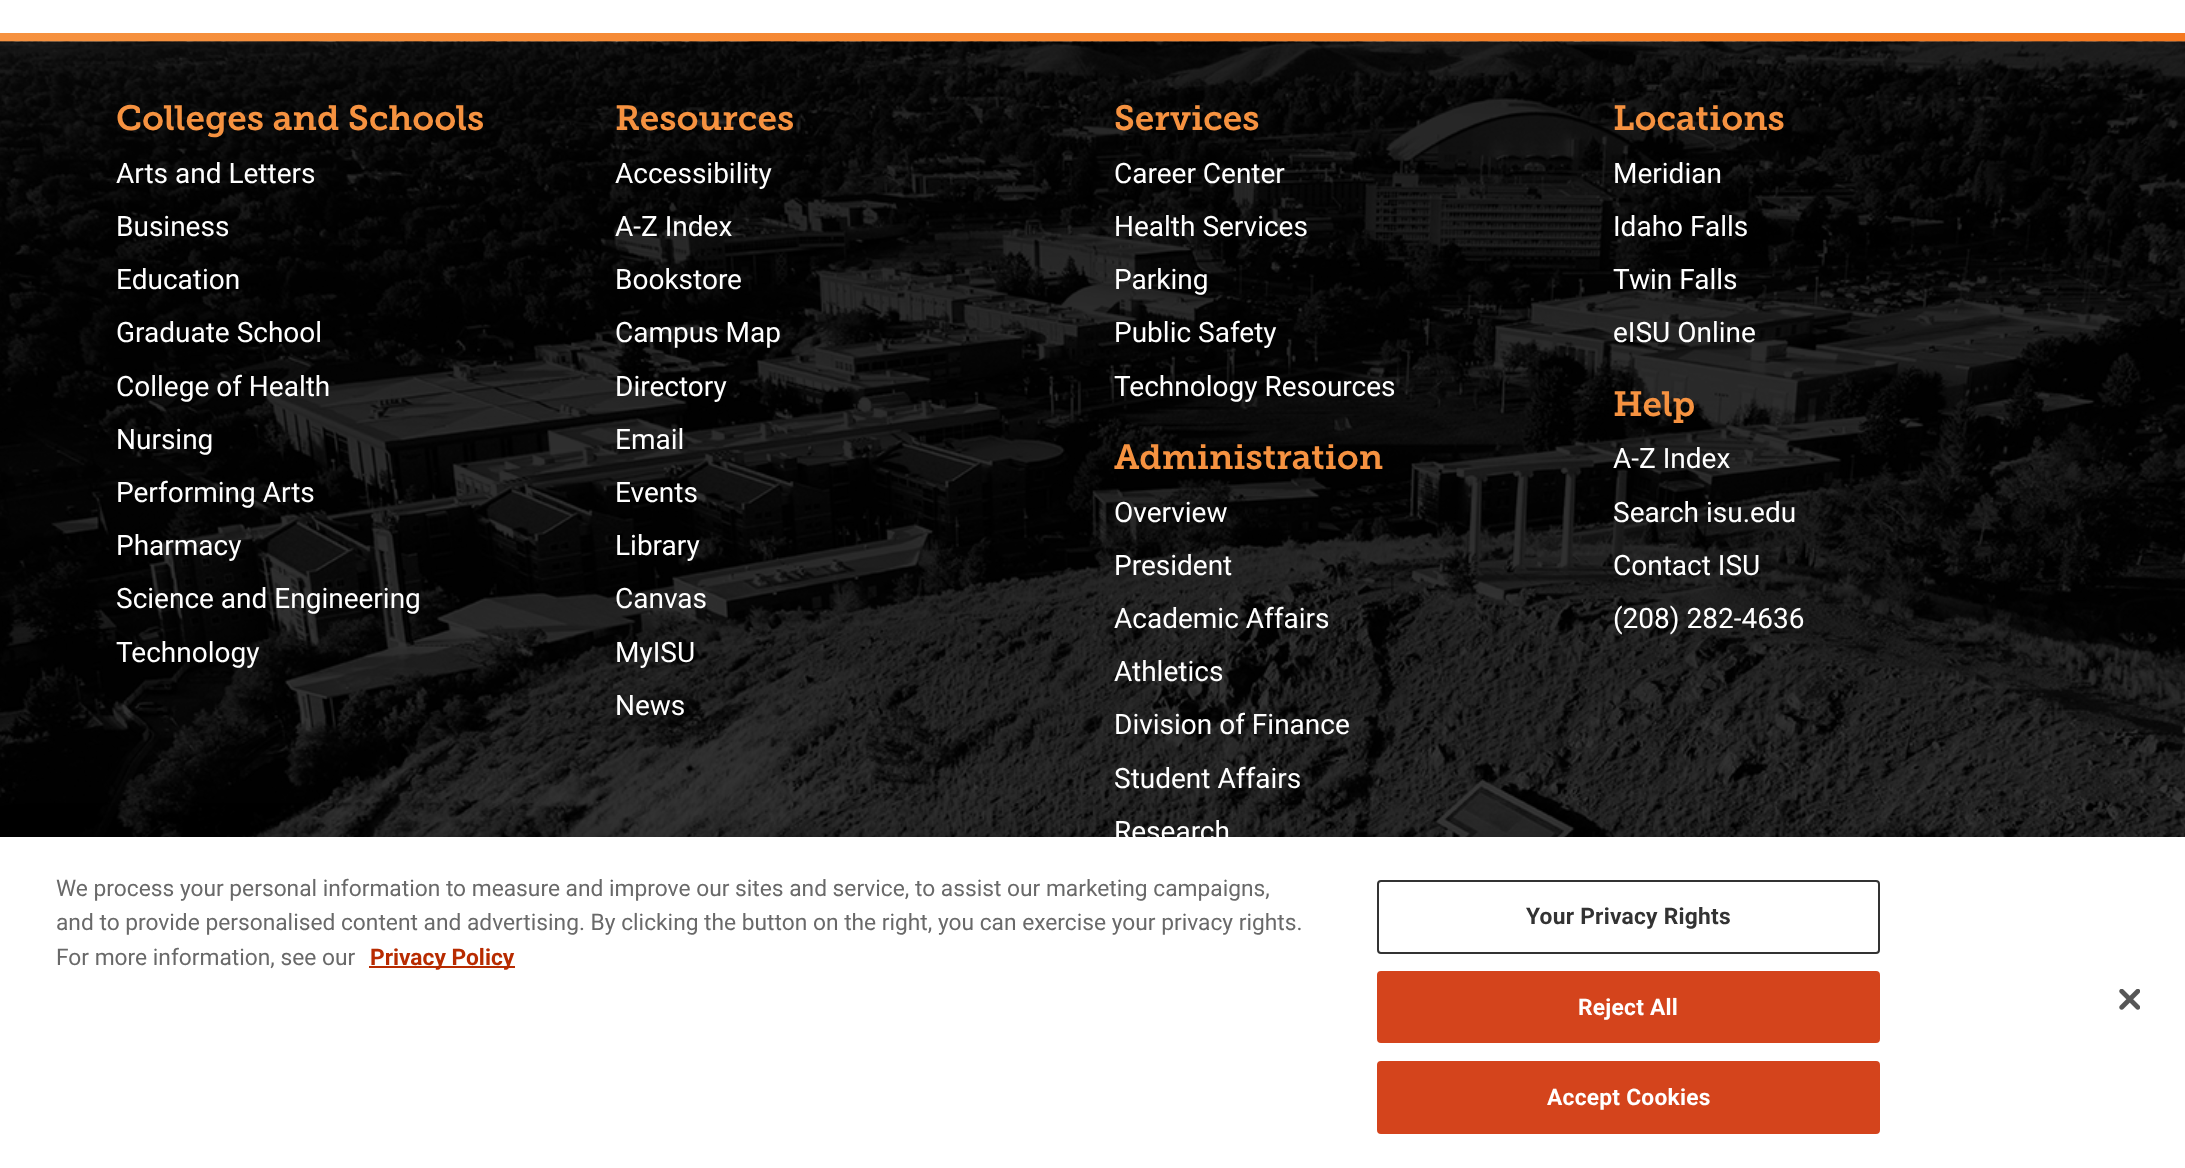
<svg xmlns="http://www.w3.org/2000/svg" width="2185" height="1168">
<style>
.a{font:600 35px Museo Slab;fill:#f69240}
.b{font:28px Roboto;fill:#fff}
.c{font:22.75px Roboto;fill:#696969}
.d{font:bold 22.75px Roboto;fill:#b82b00}
.e{font:bold 22.75px Roboto;letter-spacing:0.25px;fill:#333}
.f{font:bold 22.75px Roboto;letter-spacing:0.25px;fill:#fff}
</style>
<defs>
<linearGradient id="g1" gradientUnits="userSpaceOnUse" x1="0" y1="38" x2="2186" y2="38"><stop offset="0" stop-color="#f69240"/><stop offset="1" stop-color="#f47920"/></linearGradient>
</defs>
<rect width="100%" height="100%" fill="#fff"/>
<path fill="url(#g1)" d="M0 33h2185v9H0z"/>
<image href="1.png" x="0" y="41" width="2185" height="796"/>
<path fill="#00000033" filter="blur(16px)" d="M0 837h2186v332H0z"/>
<path fill="#fff" d="M0 837h2185v331H0z"/>
<path fill="#b82b00" d="M369 966h146v2H369z"/>
<rect fill="none" stroke="#333" stroke-width="2" x="1378" y="881" width="501" height="72" rx="3"/>
<rect fill="#d4441c" stroke="#d4441c" stroke-width="2" x="1378" y="972" width="501" height="70" rx="3"/>
<rect fill="#d4441c" stroke="#d4441c" stroke-width="2" x="1378" y="1062" width="501" height="71" rx="3"/>
<image href="2.png" x="2119" y="989" width="21" height="21"/>
<text class="a" x="116" y="130">Colleges and Schools</text>
<text class="b" x="116" y="183">Arts and Letters</text>
<text class="b" x="116" y="236">Business</text>
<text class="b" x="116" y="289">Education</text>
<text class="b" x="116" y="342">Graduate School</text>
<text class="b" x="116" y="396">College of Health</text>
<text class="b" x="116" y="449">Nursing</text>
<text class="b" x="116" y="502">Performing Arts</text>
<text class="b" x="116" y="555">Pharmacy</text>
<text class="b" x="116" y="608">Science and Engineering</text>
<text class="b" x="116" y="662">Technology</text>
<text class="a" x="615" y="130">Resources</text>
<text class="b" x="615" y="183">Accessibility</text>
<text class="b" x="615" y="236">A-Z Index</text>
<text class="b" x="615" y="289">Bookstore</text>
<text class="b" x="615" y="342">Campus Map</text>
<text class="b" x="615" y="396">Directory</text>
<text class="b" x="615" y="449">Email</text>
<text class="b" x="615" y="502">Events</text>
<text class="b" x="615" y="555">Library</text>
<text class="b" x="615" y="608">Canvas</text>
<text class="b" x="615" y="662">MyISU</text>
<text class="b" x="615" y="715">News</text>
<text class="a" x="1114" y="130">Services</text>
<text class="b" x="1114" y="183">Career Center</text>
<text class="b" x="1114" y="236">Health Services</text>
<text class="b" x="1114" y="289">Parking</text>
<text class="b" x="1114" y="342">Public Safety</text>
<text class="b" x="1114" y="396">Technology Resources</text>
<text class="a" x="1114" y="469">Administration</text>
<text class="b" x="1114" y="522">Overview</text>
<text class="b" x="1114" y="575">President</text>
<text class="b" x="1114" y="628">Academic Affairs</text>
<text class="b" x="1114" y="681">Athletics</text>
<text class="b" x="1114" y="734">Division of Finance</text>
<text class="b" x="1114" y="788">Student Affairs</text>
<text class="b" x="1114" y="841">Research</text>
<text class="a" x="1613" y="130">Locations</text>
<text class="b" x="1613" y="183">Meridian</text>
<text class="b" x="1613" y="236">Idaho Falls</text>
<text class="b" x="1613" y="289">Twin Falls</text>
<text class="b" x="1613" y="342">eISU Online</text>
<text class="a" x="1613" y="416">Help</text>
<text class="b" x="1613" y="468">A-Z Index</text>
<text class="b" x="1613" y="522">Search isu.edu</text>
<text class="b" x="1613" y="575">Contact ISU</text>
<text class="b" x="1613" y="628">(208) 282-4636</text>
<text class="c" x="56" y="896">We process your personal information to measure and improve our sites and service, to assist our marketing campaigns,</text>
<text class="c" x="56" y="930">and to provide personalised content and advertising. By clicking the button on the right, you can exercise your privacy rights.</text>
<text class="c" x="56" y="965">For more information, see our</text>
<text class="d" x="370" y="965">Privacy Policy</text>
<text class="e" x="1526" y="924">Your Privacy Rights</text>
<text class="f" x="1578" y="1015">Reject All</text>
<text class="f" x="1547" y="1105">Accept Cookies</text>
</svg>
